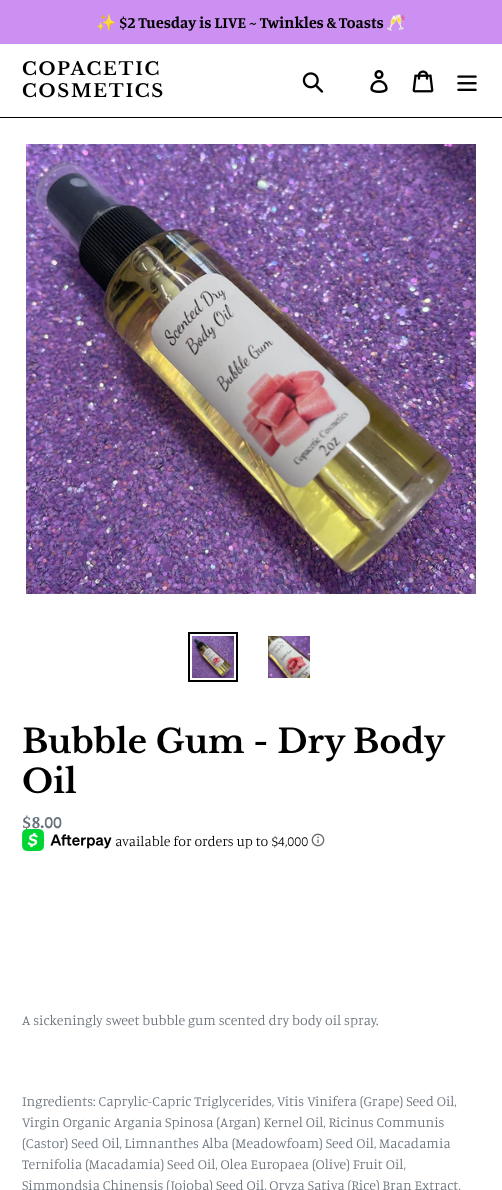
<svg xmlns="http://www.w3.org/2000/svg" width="502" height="1190">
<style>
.a{font:bold 16px Noto Color Emoji;fill:#000}
.b{font:bold 16px Manuale;fill:#000}
.c{font:bold 18px Libre Baskerville;letter-spacing:1.75px;fill:#000}
.d{font:bold 33px Libre Baskerville;fill:#000}
.e{font:bold 17.5px Manuale;fill:#69727b}
.f{font:300 14px Manuale;fill:#000}
.g{font:300 14px Manuale;fill:#69727b}
</style>
<rect width="100%" height="100%" fill="#fff"/>
<path fill="#cb90f2" d="M0 0h502v44H0z"/>
<path fill="#000" d="M0 117h502v1H0z"/>
<image href="1.png" x="302" y="72" width="22" height="21"/>
<image href="2.png" x="370" y="70" width="18" height="23"/>
<image href="3.png" x="412" y="70" width="22" height="23"/>
<image href="4.png" x="457" y="75" width="20" height="16"/>
<image href="5.png" x="26" y="144" width="450" height="450"/>
<path fill="none" stroke="#000" stroke-width="2" d="M189 633h48v48H189z"/>
<image href="6.png" x="192" y="636" width="42" height="42"/>
<image href="7.png" x="268" y="636" width="42" height="42"/>
<image href="9.png" x="311" y="833" width="14" height="14"/>
<text class="a" x="96" y="28">✨</text>
<text class="b" x="119" y="28">$2 Tuesday is LIVE ~ Twinkles &amp; Toasts</text>
<text class="a" x="386" y="28">🥂</text>
<text class="c" x="22" y="75">COPACETIC</text>
<text class="c" x="22" y="97">COSMETICS</text>
<text class="d" x="22" y="753">Bubble Gum - Dry Body</text>
<text class="d" x="22" y="793">Oil</text>
<text class="e" x="22" y="828">$8.00</text>
<image href="8.png" x="22" y="829" width="90" height="22"/>
<text class="f" x="115" y="846">available for orders up to $4,000</text>
<text class="g" x="22" y="1025">A sickeningly sweet bubble gum scented dry body oil spray.</text>
<text class="g" x="22" y="1106">Ingredients: Caprylic-Capric Triglycerides, Vitis Vinifera (Grape) Seed Oil,</text>
<text class="g" x="22" y="1127">Virgin Organic Argania Spinosa (Argan) Kernel Oil, Ricinus Communis</text>
<text class="g" x="22" y="1148">(Castor) Seed Oil, Limnanthes Alba (Meadowfoam) Seed Oil, Macadamia</text>
<text class="g" x="22" y="1169">Ternifolia (Macadamia) Seed Oil, Olea Europaea (Olive) Fruit Oil,</text>
<text class="g" x="22" y="1190">Simmondsia Chinensis (Jojoba) Seed Oil, Oryza Sativa (Rice) Bran Extract,</text>
</svg>
